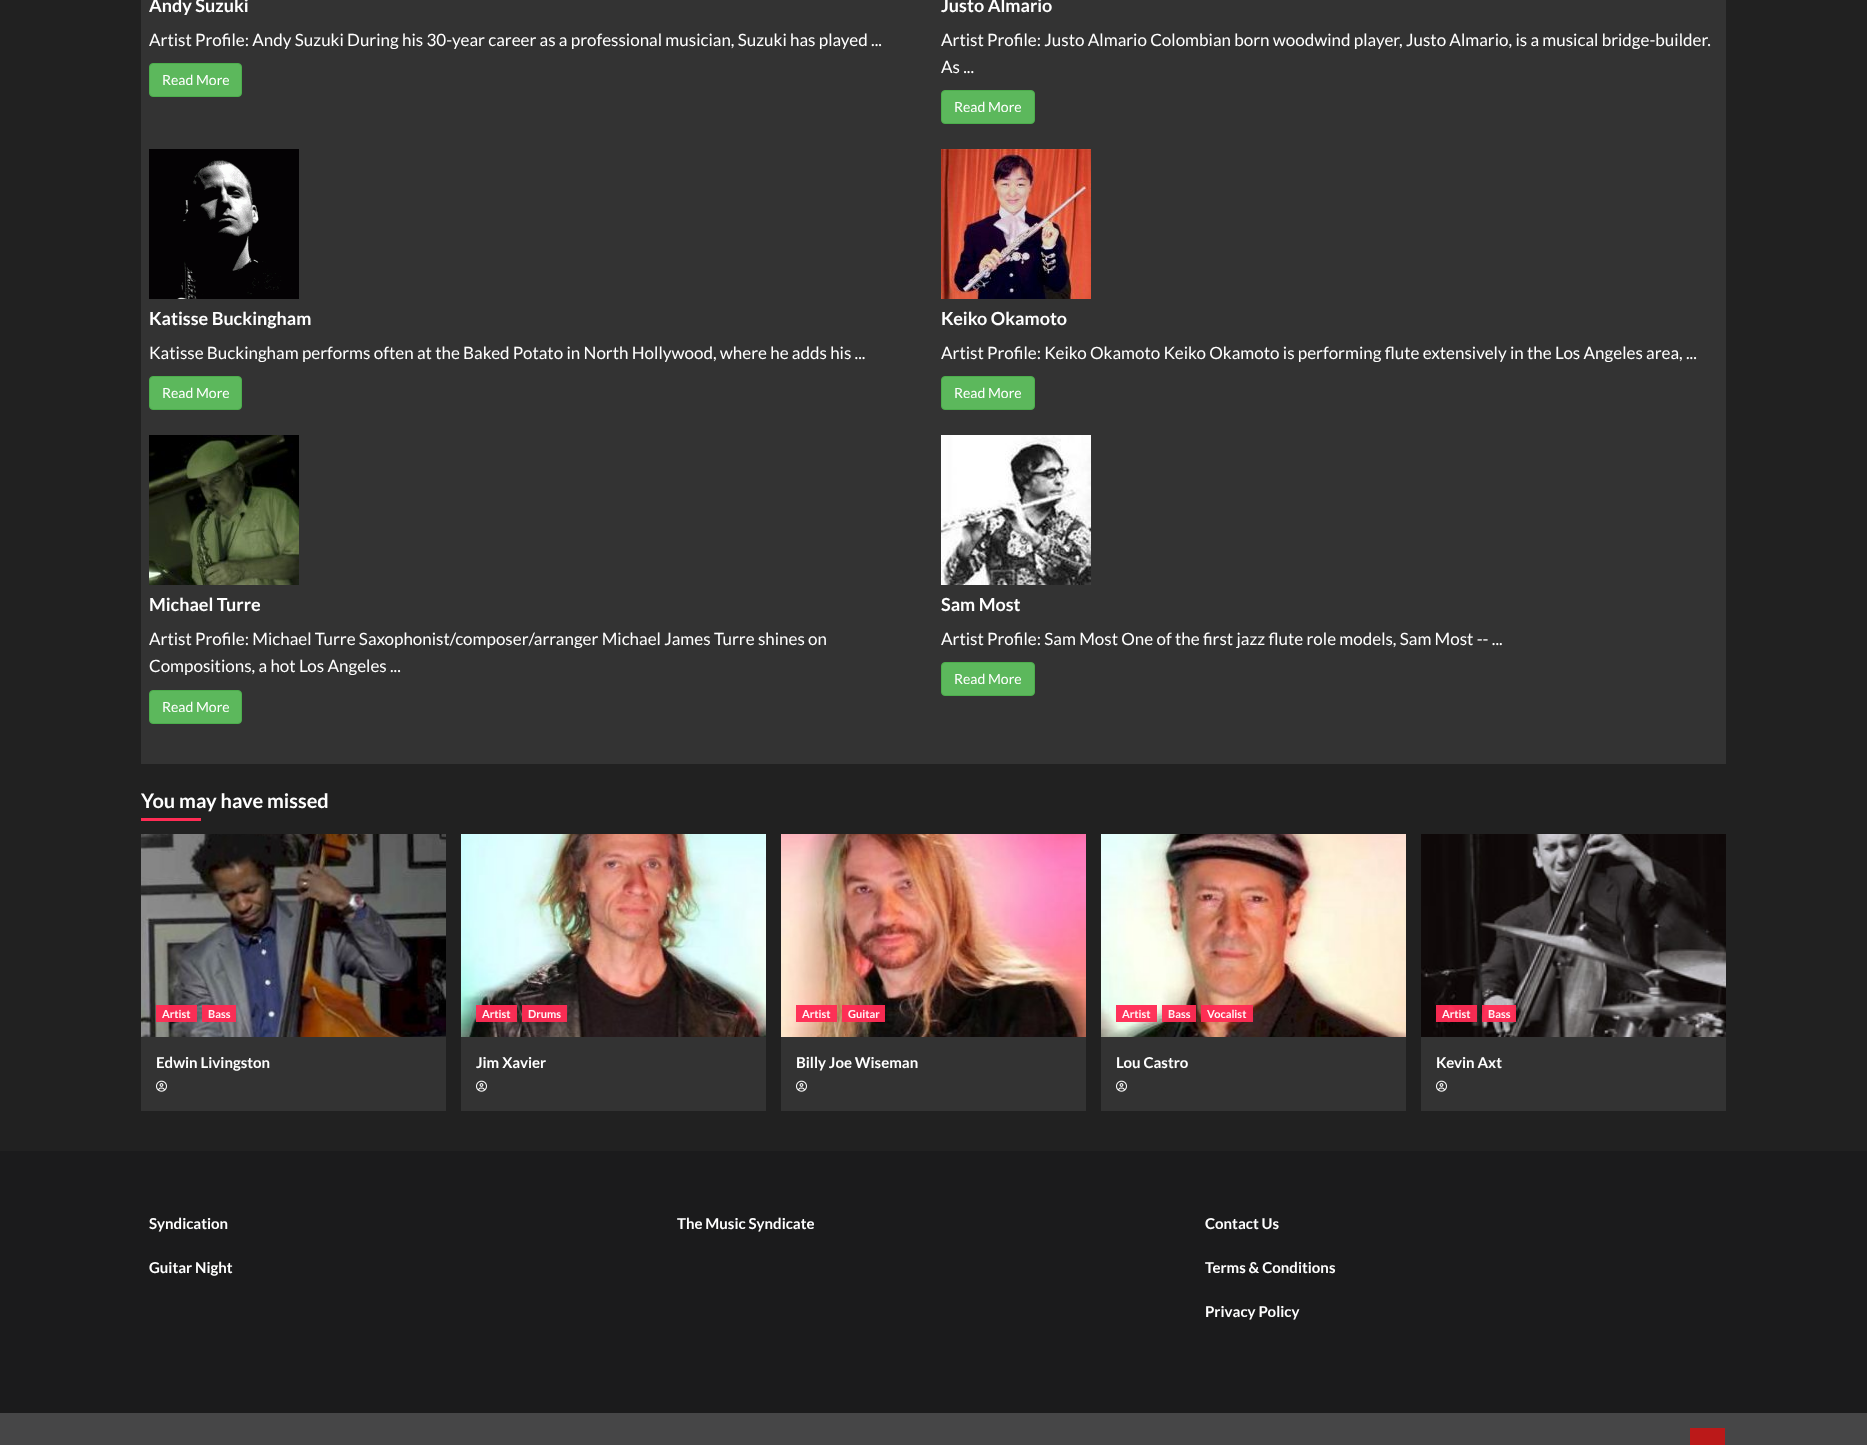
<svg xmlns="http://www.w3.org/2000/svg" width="1867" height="1445">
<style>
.a{font:bold 18px Lato;fill:#fff}
.b{font:17px Lato;fill:#fff}
.c{font:14px Lato;fill:#fff}
.d{font:bold 20px Lato;fill:#fff}
.e{font:bold 11px Lato;fill:#fff7f8}
.f{font:bold 15px Lato;fill:#fff}
</style>
<rect width="100%" height="100%" fill="#212121"/>
<path fill="#333" d="M141 0h1585v764H141z"/>
<rect fill="#5cb85c" stroke="#4cae4c" x="149.5" y="63.5" width="92" height="33" rx="3.5"/>
<rect fill="#5cb85c" stroke="#4cae4c" x="941.5" y="90.5" width="93" height="33" rx="3.5"/>
<image href="1.png" x="149" y="149" width="150" height="150"/>
<rect fill="#5cb85c" stroke="#4cae4c" x="149.5" y="376.5" width="92" height="33" rx="3.5"/>
<image href="2.png" x="941" y="149" width="150" height="150"/>
<rect fill="#5cb85c" stroke="#4cae4c" x="941.5" y="376.5" width="93" height="33" rx="3.5"/>
<image href="3.png" x="149" y="435" width="150" height="150"/>
<rect fill="#5cb85c" stroke="#4cae4c" x="149.5" y="690.5" width="92" height="33" rx="3.5"/>
<image href="4.png" x="941" y="435" width="150" height="150"/>
<rect fill="#5cb85c" stroke="#4cae4c" x="941.5" y="662.5" width="93" height="33" rx="3.5"/>
<path fill="#ff2c54" d="M141 818h60v3H141z"/>
<path fill="#333" d="M141 1037h305v74H141z"/>
<image href="5.png" x="141" y="834" width="305" height="203"/>
<path fill="#ff2c54f5" d="M156 1005h41v17H156z"/>
<path fill="#ff2c54f5" d="M202 1005h34v17H202z"/>
<image href="6.png" x="156" y="1080" width="11" height="12"/>
<path fill="#333" d="M461 1037h305v74H461z"/>
<image href="7.png" x="461" y="834" width="305" height="203"/>
<path fill="#ff2c54f5" d="M476 1005h41v17H476z"/>
<path fill="#ff2c54f5" d="M522 1005h45v17H522z"/>
<image href="6.png" x="476" y="1080" width="11" height="12"/>
<path fill="#333" d="M781 1037h305v74H781z"/>
<image href="8.png" x="781" y="834" width="305" height="203"/>
<path fill="#ff2c54f5" d="M796 1005h41v17H796z"/>
<path fill="#ff2c54f5" d="M842 1005h43v17H842z"/>
<image href="6.png" x="796" y="1080" width="11" height="12"/>
<path fill="#333" d="M1101 1037h305v74H1101z"/>
<image href="9.png" x="1101" y="834" width="305" height="203"/>
<path fill="#ff2c54f5" d="M1116 1005h41v17H1116z"/>
<path fill="#ff2c54f5" d="M1162 1005h34v17H1162z"/>
<path fill="#ff2c54f5" d="M1201 1005h52v17H1201z"/>
<image href="6.png" x="1116" y="1080" width="11" height="12"/>
<path fill="#333" d="M1421 1037h305v74H1421z"/>
<image href="10.png" x="1421" y="834" width="305" height="203"/>
<path fill="#ff2c54f5" d="M1436 1005h41v17H1436z"/>
<path fill="#ff2c54f5" d="M1482 1005h34v17H1482z"/>
<image href="6.png" x="1436" y="1080" width="11" height="12"/>
<path fill="#1b1b1c" d="M0 1151h1867v262H0z"/>
<path fill="#464647" d="M0 1413h1867v32H0z"/>
<path fill="#bb1919" d="M1690 1428h35v17H1690z"/>
<text class="a" x="149" y="12">Andy Suzuki</text>
<text class="b" x="149" y="46">Artist Profile: Andy Suzuki During his 30-year career as a professional musician, Suzuki has played ...</text>
<text class="c" x="162" y="85">Read More</text>
<text class="a" x="941" y="12">Justo Almario</text>
<text class="b" x="941" y="46">Artist Profile: Justo Almario Colombian born woodwind player, Justo Almario, is a musical bridge-builder.</text>
<text class="b" x="941" y="73">As ...</text>
<text class="c" x="954" y="112">Read More</text>
<text class="a" x="149" y="325">Katisse Buckingham</text>
<text class="b" x="149" y="359">Katisse Buckingham performs often at the Baked Potato in North Hollywood, where he adds his ...</text>
<text class="c" x="162" y="398">Read More</text>
<text class="a" x="941" y="325">Keiko Okamoto</text>
<text class="b" x="941" y="359">Artist Profile: Keiko Okamoto Keiko Okamoto is performing flute extensively in the Los Angeles area, ...</text>
<text class="c" x="954" y="398">Read More</text>
<text class="a" x="149" y="611">Michael Turre</text>
<text class="b" x="149" y="645">Artist Profile: Michael Turre Saxophonist/composer/arranger Michael James Turre shines on</text>
<text class="b" x="149" y="672">Compositions, a hot Los Angeles ...</text>
<text class="c" x="162" y="712">Read More</text>
<text class="a" x="941" y="611">Sam Most</text>
<text class="b" x="941" y="645">Artist Profile: Sam Most One of the first jazz flute role models, Sam Most -- ...</text>
<text class="c" x="954" y="684">Read More</text>
<text class="d" x="141" y="808">You may have missed</text>
<text class="e" x="162" y="1018">Artist</text>
<text class="e" x="208" y="1018">Bass</text>
<text class="f" x="156" y="1068">Edwin Livingston</text>
<text class="e" x="482" y="1018">Artist</text>
<text class="e" x="528" y="1018">Drums</text>
<text class="f" x="476" y="1068">Jim Xavier</text>
<text class="e" x="802" y="1018">Artist</text>
<text class="e" x="848" y="1018">Guitar</text>
<text class="f" x="796" y="1068">Billy Joe Wiseman</text>
<text class="e" x="1122" y="1018">Artist</text>
<text class="e" x="1168" y="1018">Bass</text>
<text class="e" x="1207" y="1018">Vocalist</text>
<text class="f" x="1116" y="1068">Lou Castro</text>
<text class="e" x="1442" y="1018">Artist</text>
<text class="e" x="1488" y="1018">Bass</text>
<text class="f" x="1436" y="1068">Kevin Axt</text>
<text class="f" x="149" y="1229">Syndication</text>
<text class="f" x="149" y="1273">Guitar Night</text>
<text class="f" x="677" y="1229">The Music Syndicate</text>
<text class="f" x="1205" y="1229">Contact Us</text>
<text class="f" x="1205" y="1273">Terms &amp; Conditions</text>
<text class="f" x="1205" y="1317">Privacy Policy</text>
</svg>
